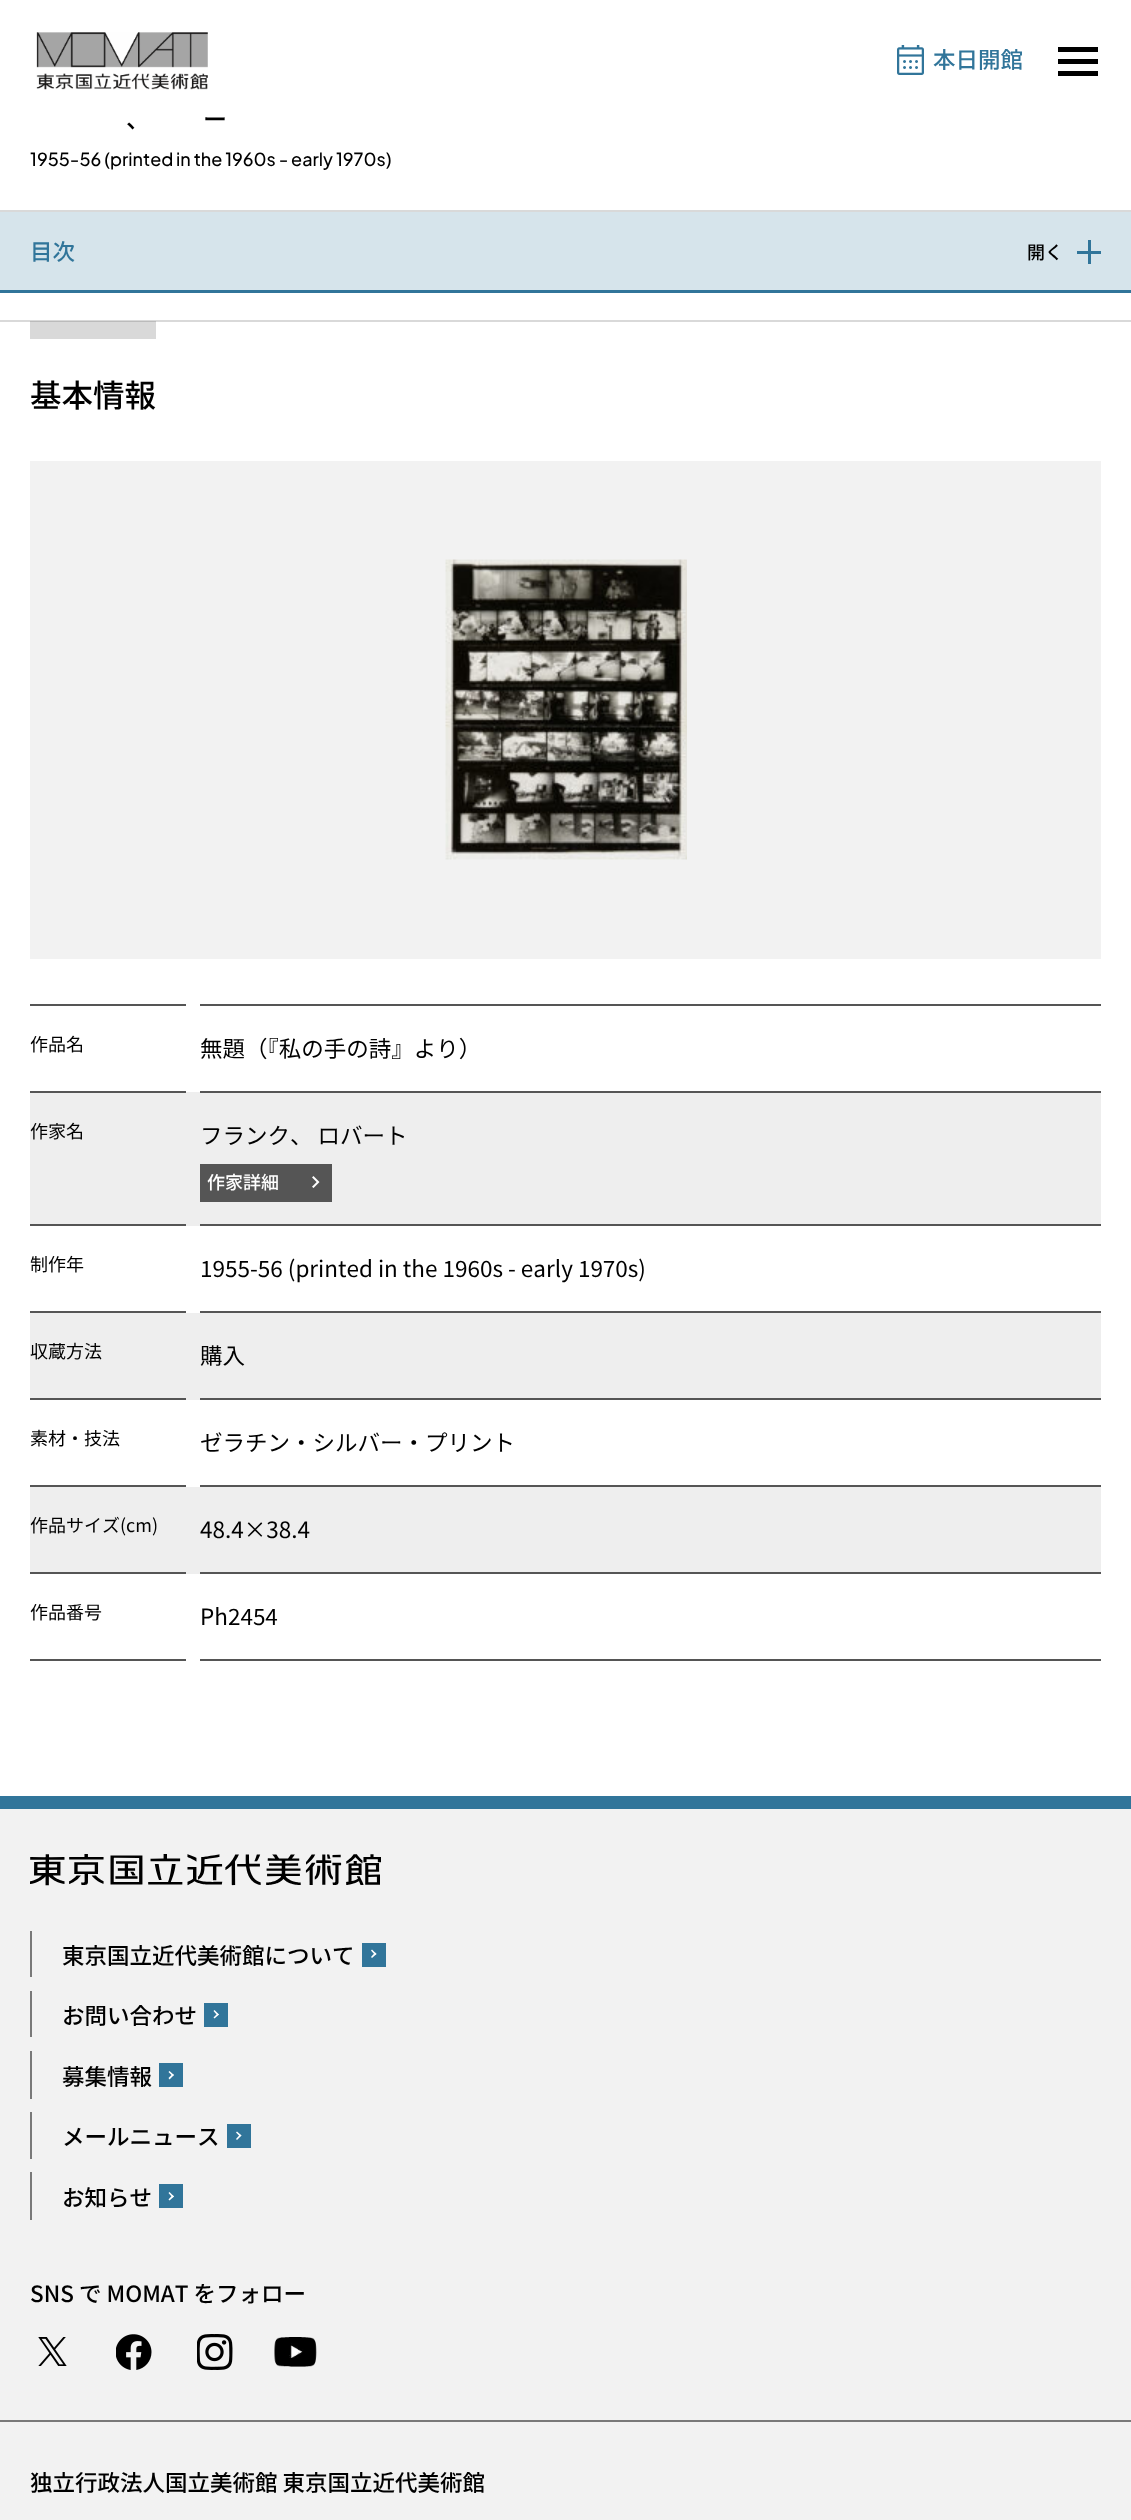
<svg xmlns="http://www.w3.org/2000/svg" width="1131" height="2520">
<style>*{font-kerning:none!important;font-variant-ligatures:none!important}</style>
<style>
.a{font:500 22.5px Noto Sans JP;fill:#31759a}
.b{font:500 24px Noto Sans JP;fill:#000}
.c{font:500 18px Plus Jakarta Sans;fill:#000}
.d{font:500 18px Noto Sans JP;fill:#000}
.e{font:500 31.5px Noto Sans JP;fill:#000}
.f{font:18px Noto Sans JP;fill:#000}
.g{font:22.5px Noto Sans JP;fill:#000}
.h{font:500 18px Noto Sans JP;fill:#fff}
.i{font:500 22.5px Noto Sans JP;fill:#000}
</style>
<rect width="100%" height="100%" fill="#f2f2f2"/>
<path fill="#fff" d="M0 0h1131v1796H0z"/>
<image href="1.png" x="36" y="32" width="172" height="58"/>
<image href="2.png" x="897" y="45" width="27" height="30"/>
<path fill="#000" d="M1058 47h40v5H1058z"/>
<path fill="#000" d="M1058 59h40v5H1058z"/>
<path fill="#000" d="M1058 71h40v5H1058z"/>
<path fill="#d9d9d9" d="M30 322h126v17H30z"/>
<path fill="#d9d9d9" d="M0 210h1131v2H0z"/>
<path fill="#d6e4eb" d="M0 212h1131v78H0z"/>
<path fill="#31759a" d="M1077 251h24v3H1077z"/>
<path fill="#31759a" d="M1088 240h3v24H1088z"/>
<path fill="#31759a" d="M0 290h1131v3H0z"/>
<path fill="#d9d9d9" d="M0 320h1131v2H0z"/>
<path fill="#bbb" d="M30 321h126v1H30z"/>
<path fill="#f2f2f2" d="M30 461h1071v498H30z"/>
<image href="3.png" x="445" y="559" width="242" height="301"/>
<path fill="#555" d="M30 1004h156v2H30z"/>
<path fill="#eee" d="M30 1092h1071v134H30z"/>
<path fill="#555" d="M30 1091h156v2H30z"/>
<path fill="#555" d="M200 1004h901v2H200z"/>
<path fill="#555" d="M200 1091h901v2H200z"/>
<path fill="#555" d="M30 1224h156v2H30z"/>
<path fill="#555" d="M200 1224h901v2H200z"/>
<path fill="#555" d="M200 1164h132v38H200z"/>
<image href="4.png" x="312" y="1176" width="8" height="12"/>
<path fill="#555" d="M30 1311h156v2H30z"/>
<path fill="#555" d="M200 1311h901v2H200z"/>
<path fill="#eee" d="M30 1313h1071v87H30z"/>
<path fill="#555" d="M30 1398h156v2H30z"/>
<path fill="#555" d="M200 1398h901v2H200z"/>
<path fill="#555" d="M30 1485h156v2H30z"/>
<path fill="#555" d="M200 1485h901v2H200z"/>
<path fill="#eee" d="M30 1487h1071v87H30z"/>
<path fill="#555" d="M30 1572h156v2H30z"/>
<path fill="#555" d="M200 1572h901v2H200z"/>
<path fill="#555" d="M30 1659h156v2H30z"/>
<path fill="#555" d="M200 1659h901v2H200z"/>
<path fill="#31759a" d="M0 1796h1131v13H0z"/>
<image href="5.png" x="30" y="1854" width="351" height="32"/>
<path fill="#797979" d="M30 1931h2v46H30z"/>
<path fill="#31759a" d="M362 1943h24v24H362z"/>
<path fill="#fff" d="M371 1950.5l1-1l4.5 4.5l-1.5 1z"/>
<path fill="#fff" d="M371 1957l4-4.5l1.5 1.5l-4.5 4z"/>
<path fill="#797979" d="M30 1991h2v46H30z"/>
<path fill="#31759a" d="M204 2003h24v24H204z"/>
<path fill="#fff" d="M213.5 2011l1-1l4.5 4.5l-1.5 1z"/>
<path fill="#797979" d="M30 2051h2v48H30z"/>
<path fill="#31759a" d="M159 2063h24v24H159z"/>
<path fill="#797979" d="M30 2112h2v47H30z"/>
<path fill="#31759a" d="M227 2124h24v24H227z"/>
<path fill="#fff" d="M236 2132.5l1-1l4.5 4l-1.5 1z"/>
<path fill="#fff" d="M236 2139l4-4.5l1.5 1l-4.5 4.5z"/>
<path fill="#797979" d="M30 2172h2v48H30z"/>
<path fill="#31759a" d="M159 2184h24v24H159z"/>
<path fill="#fff" d="M168.5 2193l1-1l4.5 4.5l-1.5 1z"/>
<path fill="#fff" d="M168.5 2199.5l4-4.5l1.5 1.5l-4.5 4z"/>
<path fill="#797979" d="M0 2420h1131v2H0z"/>
<image href="6.png" x="38" y="2337" width="29" height="29"/>
<image href="7.png" x="116" y="2334" width="36" height="36"/>
<image href="8.png" x="197" y="2334" width="36" height="36"/>
<image href="9.png" x="274" y="2337" width="43" height="30"/>
<text class="a" x="933" y="68">本日開館</text>
<text class="b" x="203" y="128">ー</text>
<text class="b" x="126" y="128">、</text>
<text class="c" x="30" y="166" word-spacing="-0.25">1955-56 (printed in the 1960s - early 1970s)</text>
<text class="a" x="30" y="260">目次</text>
<text class="d" x="1027" y="259">開く</text>
<text class="e" x="30" y="407">基本情報</text>
<text class="f" x="30" y="1051">作品名</text>
<text class="g" x="200" y="1057">無題（『私の手の詩』より）</text>
<text class="f" x="30" y="1138">作家名</text>
<text class="g" x="200" y="1144">フランク、 ロバート</text>
<text class="h" x="207" y="1189">作家詳細</text>
<text class="f" x="30" y="1271">制作年</text>
<text class="g" x="200" y="1277">1955-56 (printed in the 1960s - early 1970s)</text>
<text class="f" x="30" y="1358">収蔵方法</text>
<text class="g" x="200" y="1364">購入</text>
<text class="f" x="30" y="1445">素材・技法</text>
<text class="g" x="200" y="1451">ゼラチン・シルバー・プリント</text>
<text class="f" x="30" y="1532">作品サイズ(cm)</text>
<text class="g" x="200" y="1538">48.4×38.4</text>
<text class="f" x="30" y="1619">作品番号</text>
<text class="g" x="200" y="1625">Ph2454</text>
<text class="i" x="62" y="1964">東京国立近代美術館について</text>
<text class="i" x="62" y="2024">お問い合わせ</text>
<path fill="#fff" d="M213.5 2017.5l4-4l1.5 1l-4.5 4zm-45 54.5l1-1l4.5 4l-1.5 1z"/>
<text class="i" x="62" y="2085">募集情報</text>
<path fill="#fff" d="M168.5 2078l4-4l1.5 1l-4.5 4.5z"/>
<text class="i" x="62" y="2145">メールニュース</text>
<text class="i" x="62" y="2206">お知らせ</text>
<text class="i" x="30" y="2302">SNS で MOMAT をフォロー</text>
<text class="i" x="30" y="2491">独立行政法人国立美術館 東京国立近代美術館</text>
</svg>
